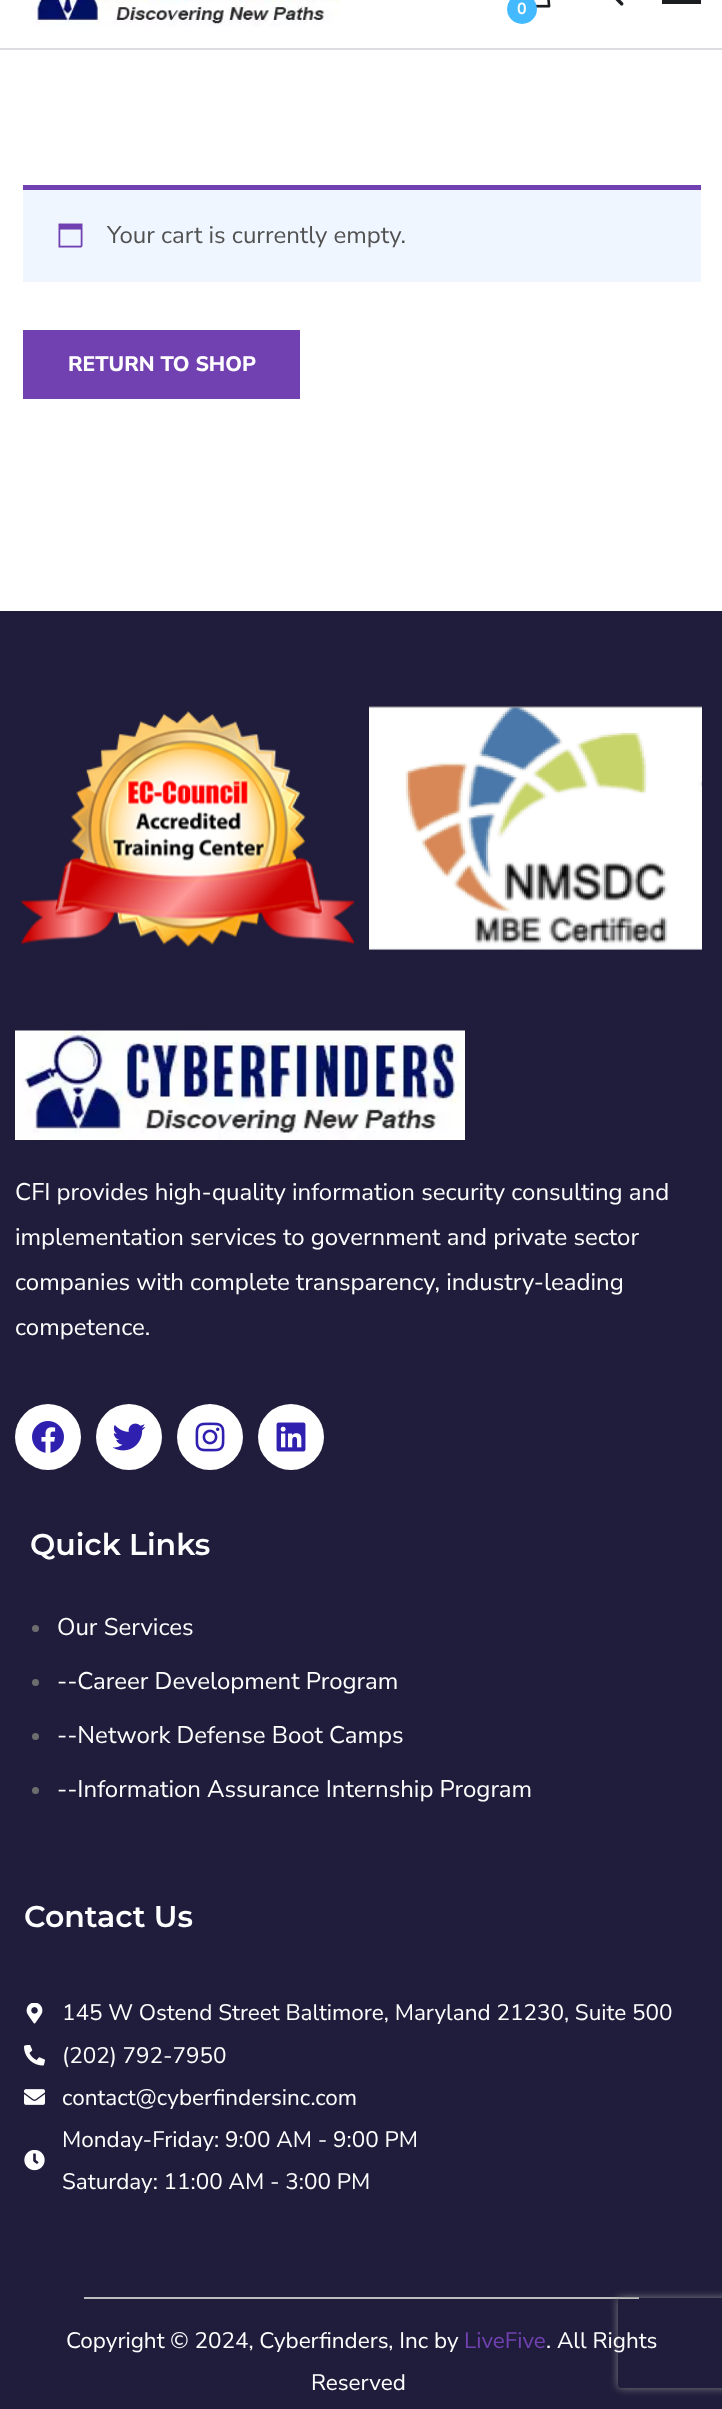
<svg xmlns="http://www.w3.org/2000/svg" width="722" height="2409">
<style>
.a{font:bold 16px Nunito Sans;fill:#fff}
.b{font:24px Nunito Sans;fill:#515151}
.c{font:800 21px Nunito Sans;fill:#fff}
.d{font:24px Nunito Sans;fill:#fff}
.e{font:600 30px Montserrat;fill:#fff}
.f{font:22.5px Nunito Sans;fill:#fff}
.g{font:22.5px Nunito Sans;fill:#7141b1}
</style>
<defs>
<clipPath id="clip1"><path d="M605 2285h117v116h-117zm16 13h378c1.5 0 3 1.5 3 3v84c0 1.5-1.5 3-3 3h-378c-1.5 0-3-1.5-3-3v-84c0-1.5 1.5-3 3-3z" clip-rule="evenodd"/></clipPath>
</defs>
<rect width="100%" height="100%" fill="#fff"/>
<path fill="#dcdde1" d="M0 48h722v2H0z"/>
<image href="1.png" x="31" y="0" width="309" height="27"/>
<image href="2.png" x="536" y="0" width="15" height="8"/>
<circle fill="#43baff" cx="522" cy="9" r="15"/>
<image href="3.png" x="615" y="0" width="9" height="6"/>
<path fill="#1b1d21" d="M662 0h39v4H662z"/>
<path fill="#eff6ff" d="M23 190h678v92H23z"/>
<path fill="#7141b1" d="M23 185h678v5H23z"/>
<image href="4.png" x="58" y="223" width="25" height="25"/>
<path fill="#7141b1" d="M23 330h277v69H23z"/>
<path fill="#201d3c" d="M0 611h722v1798H0z"/>
<image href="5.png" x="21" y="711" width="333" height="236"/>
<image href="6.png" x="369" y="706" width="333" height="244"/>
<image href="7.png" x="15" y="1030" width="450" height="110"/>
<circle fill="#fff" cx="48" cy="1437" r="33"/>
<image href="8.png" x="32" y="1421" width="32" height="32"/>
<circle fill="#fff" cx="129" cy="1437" r="33"/>
<image href="9.png" x="113" y="1423" width="33" height="28"/>
<circle fill="#fff" cx="210" cy="1437" r="33"/>
<image href="10.png" x="195" y="1422" width="30" height="30"/>
<circle fill="#fff" cx="291" cy="1437" r="33"/>
<image href="11.png" x="276" y="1422" width="30" height="30"/>
<circle fill="#6d6d6d" cx="35.5" cy="1628.5" r="3.5"/>
<circle fill="#6d6d6d" cx="35.5" cy="1682.5" r="3.5"/>
<circle fill="#6d6d6d" cx="35.5" cy="1736.5" r="3.5"/>
<circle fill="#6d6d6d" cx="35.5" cy="1790.5" r="3.5"/>
<image href="12.png" x="26" y="2003" width="17" height="21"/>
<image href="13.png" x="24" y="2045" width="21" height="21"/>
<image href="14.png" x="24" y="2089" width="21" height="16"/>
<image href="15.png" x="24" y="2150" width="21" height="21"/>
<path fill="#bdbdbd" d="M84 2297h555v2H84z"/>
<g clip-path="url(#clip1)">
<rect fill="#808080" filter="blur(4px)" x="618" y="2298" width="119" height="90" rx="3"/>
</g>
<text class="a" x="517" y="14">0</text>
<text class="b" x="107" y="243">Your cart is currently empty.</text>
<text class="c" x="68" y="371">RETURN TO SHOP</text>
<text class="d" x="15" y="1200">CFI provides high-quality information security consulting and</text>
<text class="d" x="15" y="1245">implementation services to government and private sector</text>
<text class="d" x="15" y="1290">companies with complete transparency, industry-leading</text>
<text class="d" x="15" y="1335">competence.</text>
<text class="e" x="30" y="1555">Quick Links</text>
<text class="d" x="57" y="1635">Our Services</text>
<text class="d" x="57" y="1689">--Career Development Program</text>
<text class="d" x="57" y="1743">--Network Defense Boot Camps</text>
<text class="d" x="57" y="1797">--Information Assurance Internship Program</text>
<text class="e" x="24" y="1927">Contact Us</text>
<text class="f" x="62" y="2020">145 W Ostend Street Baltimore, Maryland 21230, Suite 500</text>
<text class="f" x="62" y="2063">(202) 792-7950</text>
<text class="f" x="62" y="2105">contact@cyberfindersinc.com</text>
<text class="f" x="62" y="2147">Monday-Friday: 9:00 AM - 9:00 PM</text>
<text class="f" x="62" y="2189">Saturday: 11:00 AM - 3:00 PM</text>
<text class="f" x="66" y="2348">Copyright © 2024, Cyberfinders, Inc by</text>
<text class="g" x="464" y="2348">LiveFive</text>
<text class="f" x="546" y="2348">. All Rights</text>
<text class="f" x="311" y="2390">Reserved</text>
</svg>
